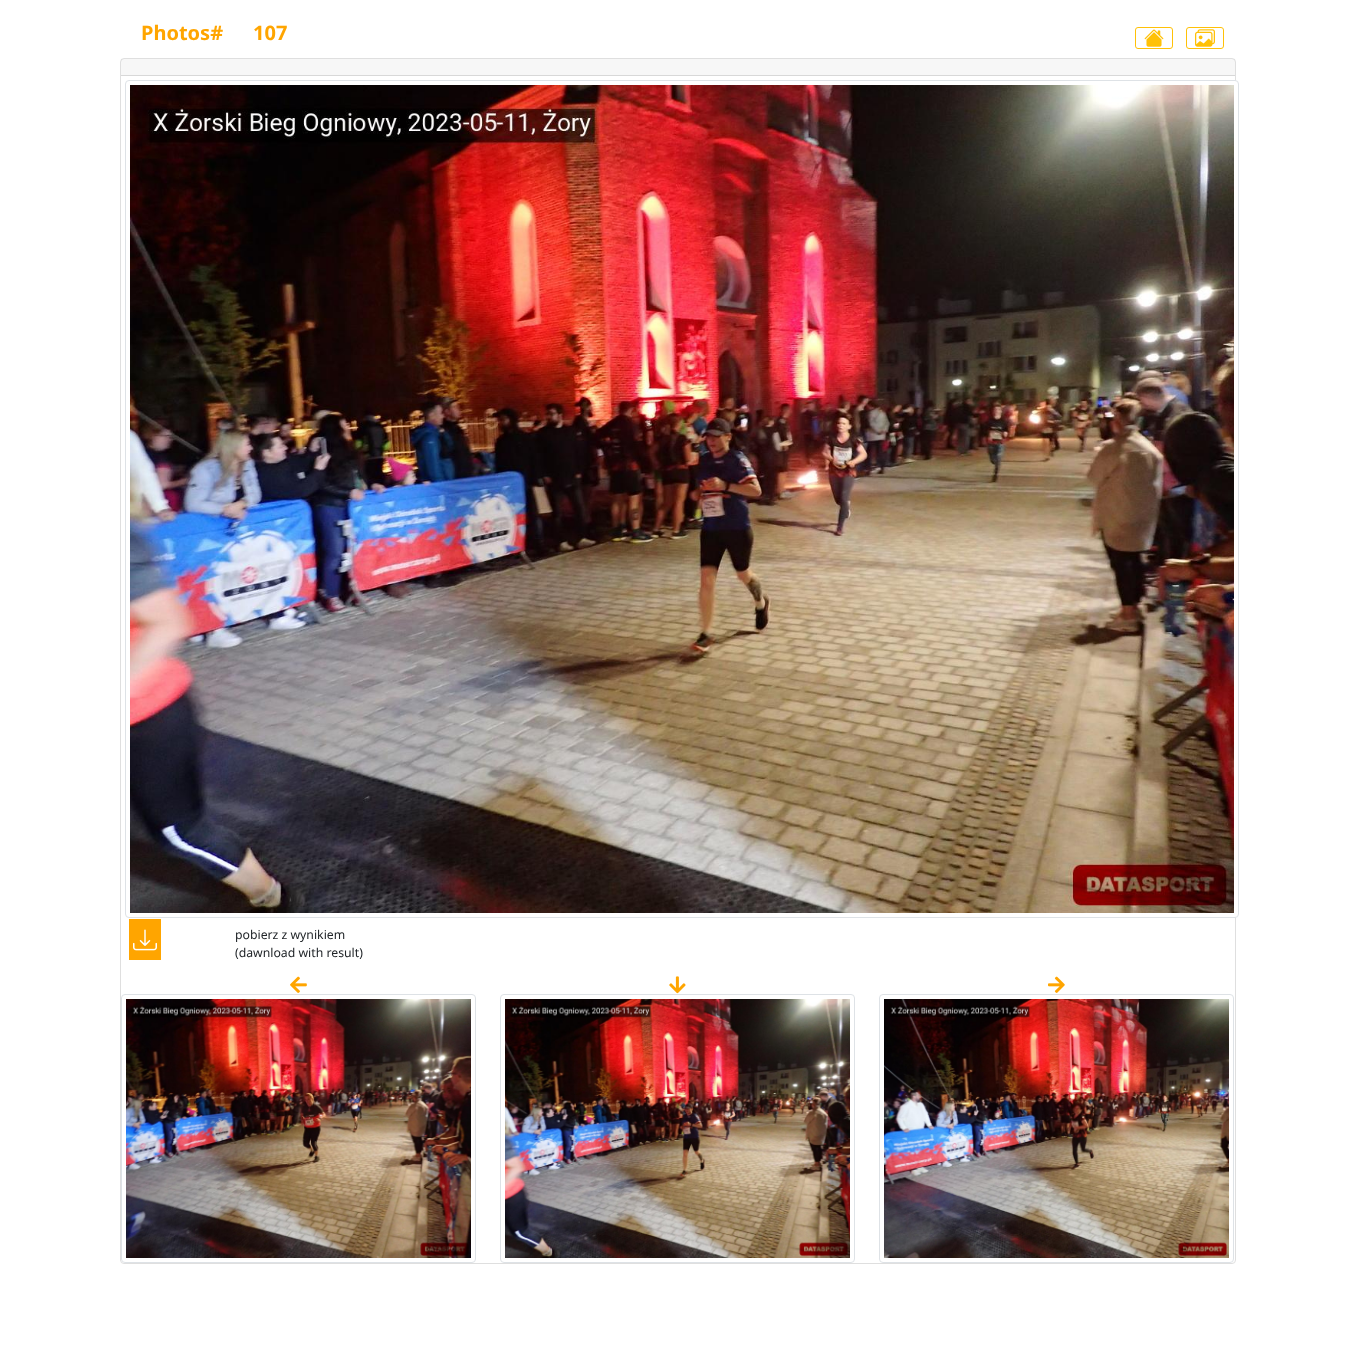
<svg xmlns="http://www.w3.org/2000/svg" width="1355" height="1352">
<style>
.a{font:bold 20px Noto Sans;fill:#ffa500}
.b{font:12.25px Noto Sans;fill:#212529}
</style>
<rect width="100%" height="100%" fill="#fff"/>
<rect fill="none" stroke="#ffc107" x="1135.5" y="27.5" width="37" height="21" rx="2.5"/>
<image href="1.png" x="1144" y="29" width="20" height="18"/>
<rect fill="none" stroke="#ffc107" x="1186.5" y="27.5" width="37" height="21" rx="2.5"/>
<image href="2.png" x="1195" y="29" width="20" height="18"/>
<rect fill="none" stroke="#dfdfdf" x="120.5" y="58.5" width="1115" height="1205" rx="3.5"/>
<path fill="#00000008" d="M121 59h1114v16H121z"/>
<path fill="#d8d8d8" d="M121 75h1114v1H121z"/>
<rect fill="#fff" stroke="#dee2e6" x="125.5" y="80.5" width="1113" height="837" rx="3.5"/>
<image href="3.png" x="130" y="85" width="1104" height="828"/>
<path fill="#ffa500" d="M129 919h32v41H129z"/>
<image href="4.png" x="133" y="929" width="24" height="22"/>
<image href="5.png" x="290" y="976" width="17" height="17"/>
<rect fill="none" stroke="#dee2e6" x="121.5" y="994.5" width="354" height="268" rx="3.5"/>
<image href="6.png" x="126" y="999" width="345" height="259"/>
<image href="7.png" x="669" y="976" width="17" height="18"/>
<rect fill="none" stroke="#dee2e6" x="500.5" y="994.5" width="354" height="268" rx="3.5"/>
<image href="8.png" x="505" y="999" width="345" height="259"/>
<image href="9.png" x="1048" y="976" width="17" height="17"/>
<rect fill="none" stroke="#dee2e6" x="879.5" y="994.5" width="354" height="268" rx="3.5"/>
<image href="10.png" x="884" y="999" width="345" height="259"/>
<text class="a" x="141" y="40">Photos#</text>
<text class="a" x="253" y="40">107</text>
<text class="b" x="235" y="939">pobierz z wynikiem</text>
<text class="b" x="235" y="957">(dawnload with result)</text>
</svg>
